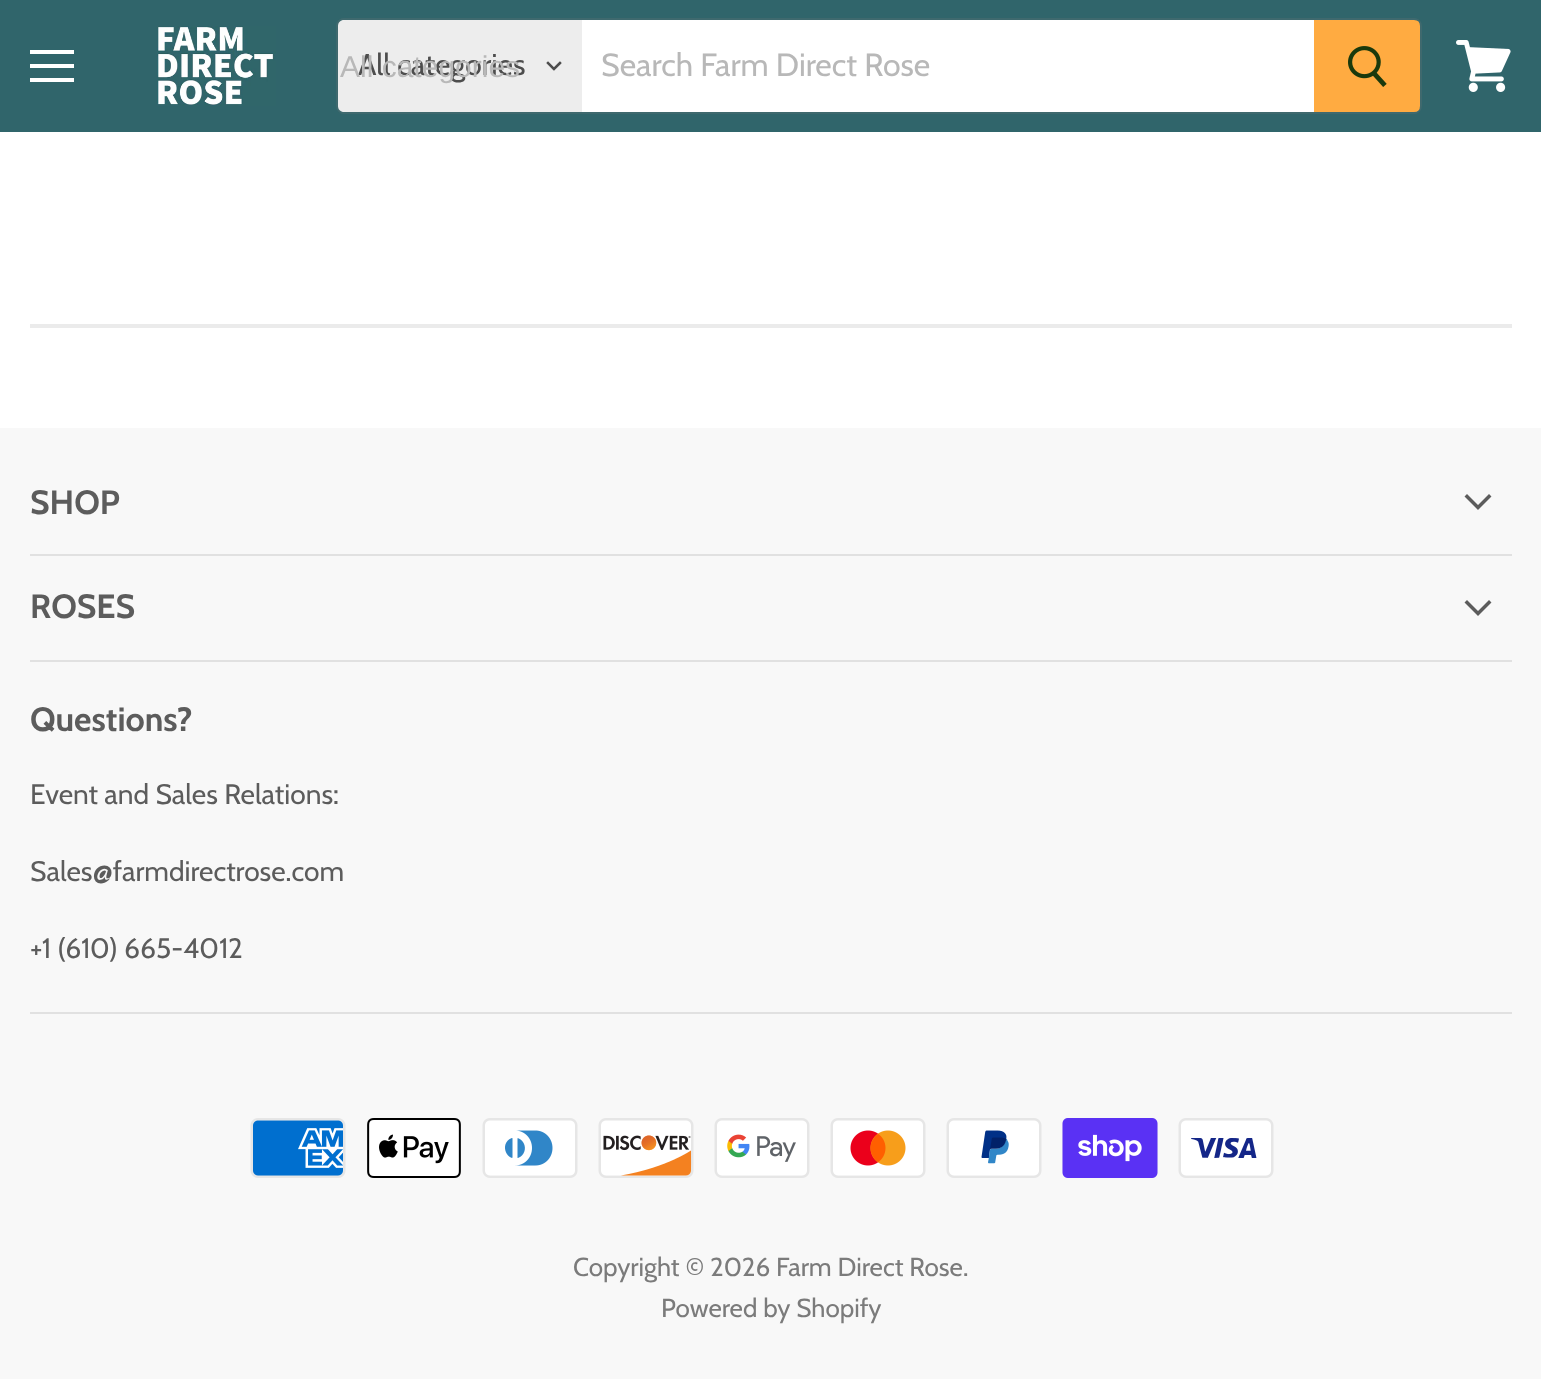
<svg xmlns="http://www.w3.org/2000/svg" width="1541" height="1379">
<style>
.a{font:30px Cabin;fill:#4d4d4d}
.b{font:30px Liberation Sans;fill:#b8b8b8}
.c{font:32px Cabin;fill:#b8b8b8}
.d{font:bold 33.75px Cabin;fill:#5c5c5c}
.e{font:28.1px Cabin;fill:#5c5c5c}
.f{font:26px Cabin;fill:#7b7b7b}
</style>
<rect width="100%" height="100%" fill="#fff"/>
<path fill="#30656b" d="M0 0h1541v132H0z"/>
<path fill="#fff" d="M30 50h44v4H30z"/>
<path fill="#fff" d="M30 64h44v4H30z"/>
<path fill="#fff" d="M30 78h44v4H30z"/>
<image href="1.png" x="157" y="26" width="119" height="80"/>
<rect fill="none" stroke="#7f7f7f33" stroke-width="2" x="337" y="19" width="1084" height="94" rx="7"/>
<path fill="#ededed" d="M344 20h238v92h-238c-3.5 0-6-2.5-6-6v-80c0-3.5 2.5-6 6-6z"/>
<path fill="none" stroke="#4d4d4d" stroke-width="2.5" stroke-linecap="square" d="M554 69l6-6m-6 6l-6-6"/>
<path fill="#fff" d="M582 20h732v92H582z"/>
<path fill="#ffab41" stroke="#ffab41" stroke-width="2" d="M1315 21h99c3 0 5 2 5 5v80c0 3-2 5-5 5h-99z"/>
<image href="2.png" x="1348" y="46" width="39" height="41"/>
<image href="3.png" x="1456" y="40" width="55" height="52"/>
<path fill="#ebebeb" d="M30 324h1482v4H30z"/>
<path fill="#f8f8f8" d="M0 428h1541v951H0z"/>
<path fill="#e1e1e1" d="M30 554h1482v2H30z"/>
<path fill="none" stroke="#5c5c5c" stroke-width="3.5" stroke-linecap="square" d="M1478 507.5l11-11m-11 11l-11-11"/>
<path fill="#e1e1e1" d="M30 660h1482v2H30z"/>
<path fill="none" stroke="#5c5c5c" stroke-width="3.5" stroke-linecap="square" d="M1478 613.5l11-11m-11 11l-11-11"/>
<path fill="#e1e1e1" d="M30 1012h1482v2H30z"/>
<image href="4.png" x="250" y="1118" width="96" height="60"/>
<image href="5.png" x="367" y="1118" width="94" height="60"/>
<image href="6.png" x="482" y="1118" width="96" height="60"/>
<image href="7.png" x="598" y="1118" width="96" height="60"/>
<image href="8.png" x="714" y="1118" width="96" height="60"/>
<image href="9.png" x="830" y="1118" width="96" height="60"/>
<image href="10.png" x="946" y="1118" width="96" height="60"/>
<image href="11.png" x="1062" y="1118" width="96" height="60"/>
<image href="12.png" x="1178" y="1118" width="96" height="60"/>
<text class="a" x="358" y="75">All categories</text>
<text class="b" x="340" y="77">All categories</text>
<text class="c" x="601" y="76">Search Farm Direct Rose</text>
<text class="d" x="30" y="514">SHOP</text>
<text class="d" x="30" y="618">ROSES</text>
<text class="d" x="30" y="731">Questions?</text>
<text class="e" x="30" y="804">Event and Sales Relations:</text>
<text class="e" x="30" y="881">Sales@farmdirectrose.com</text>
<text class="e" x="30" y="958">+1 (610) 665-4012</text>
<text class="f" x="573" y="1276">Copyright © 2026 Farm Direct Rose.</text>
<text class="f" x="661" y="1317">Powered by Shopify</text>
</svg>
